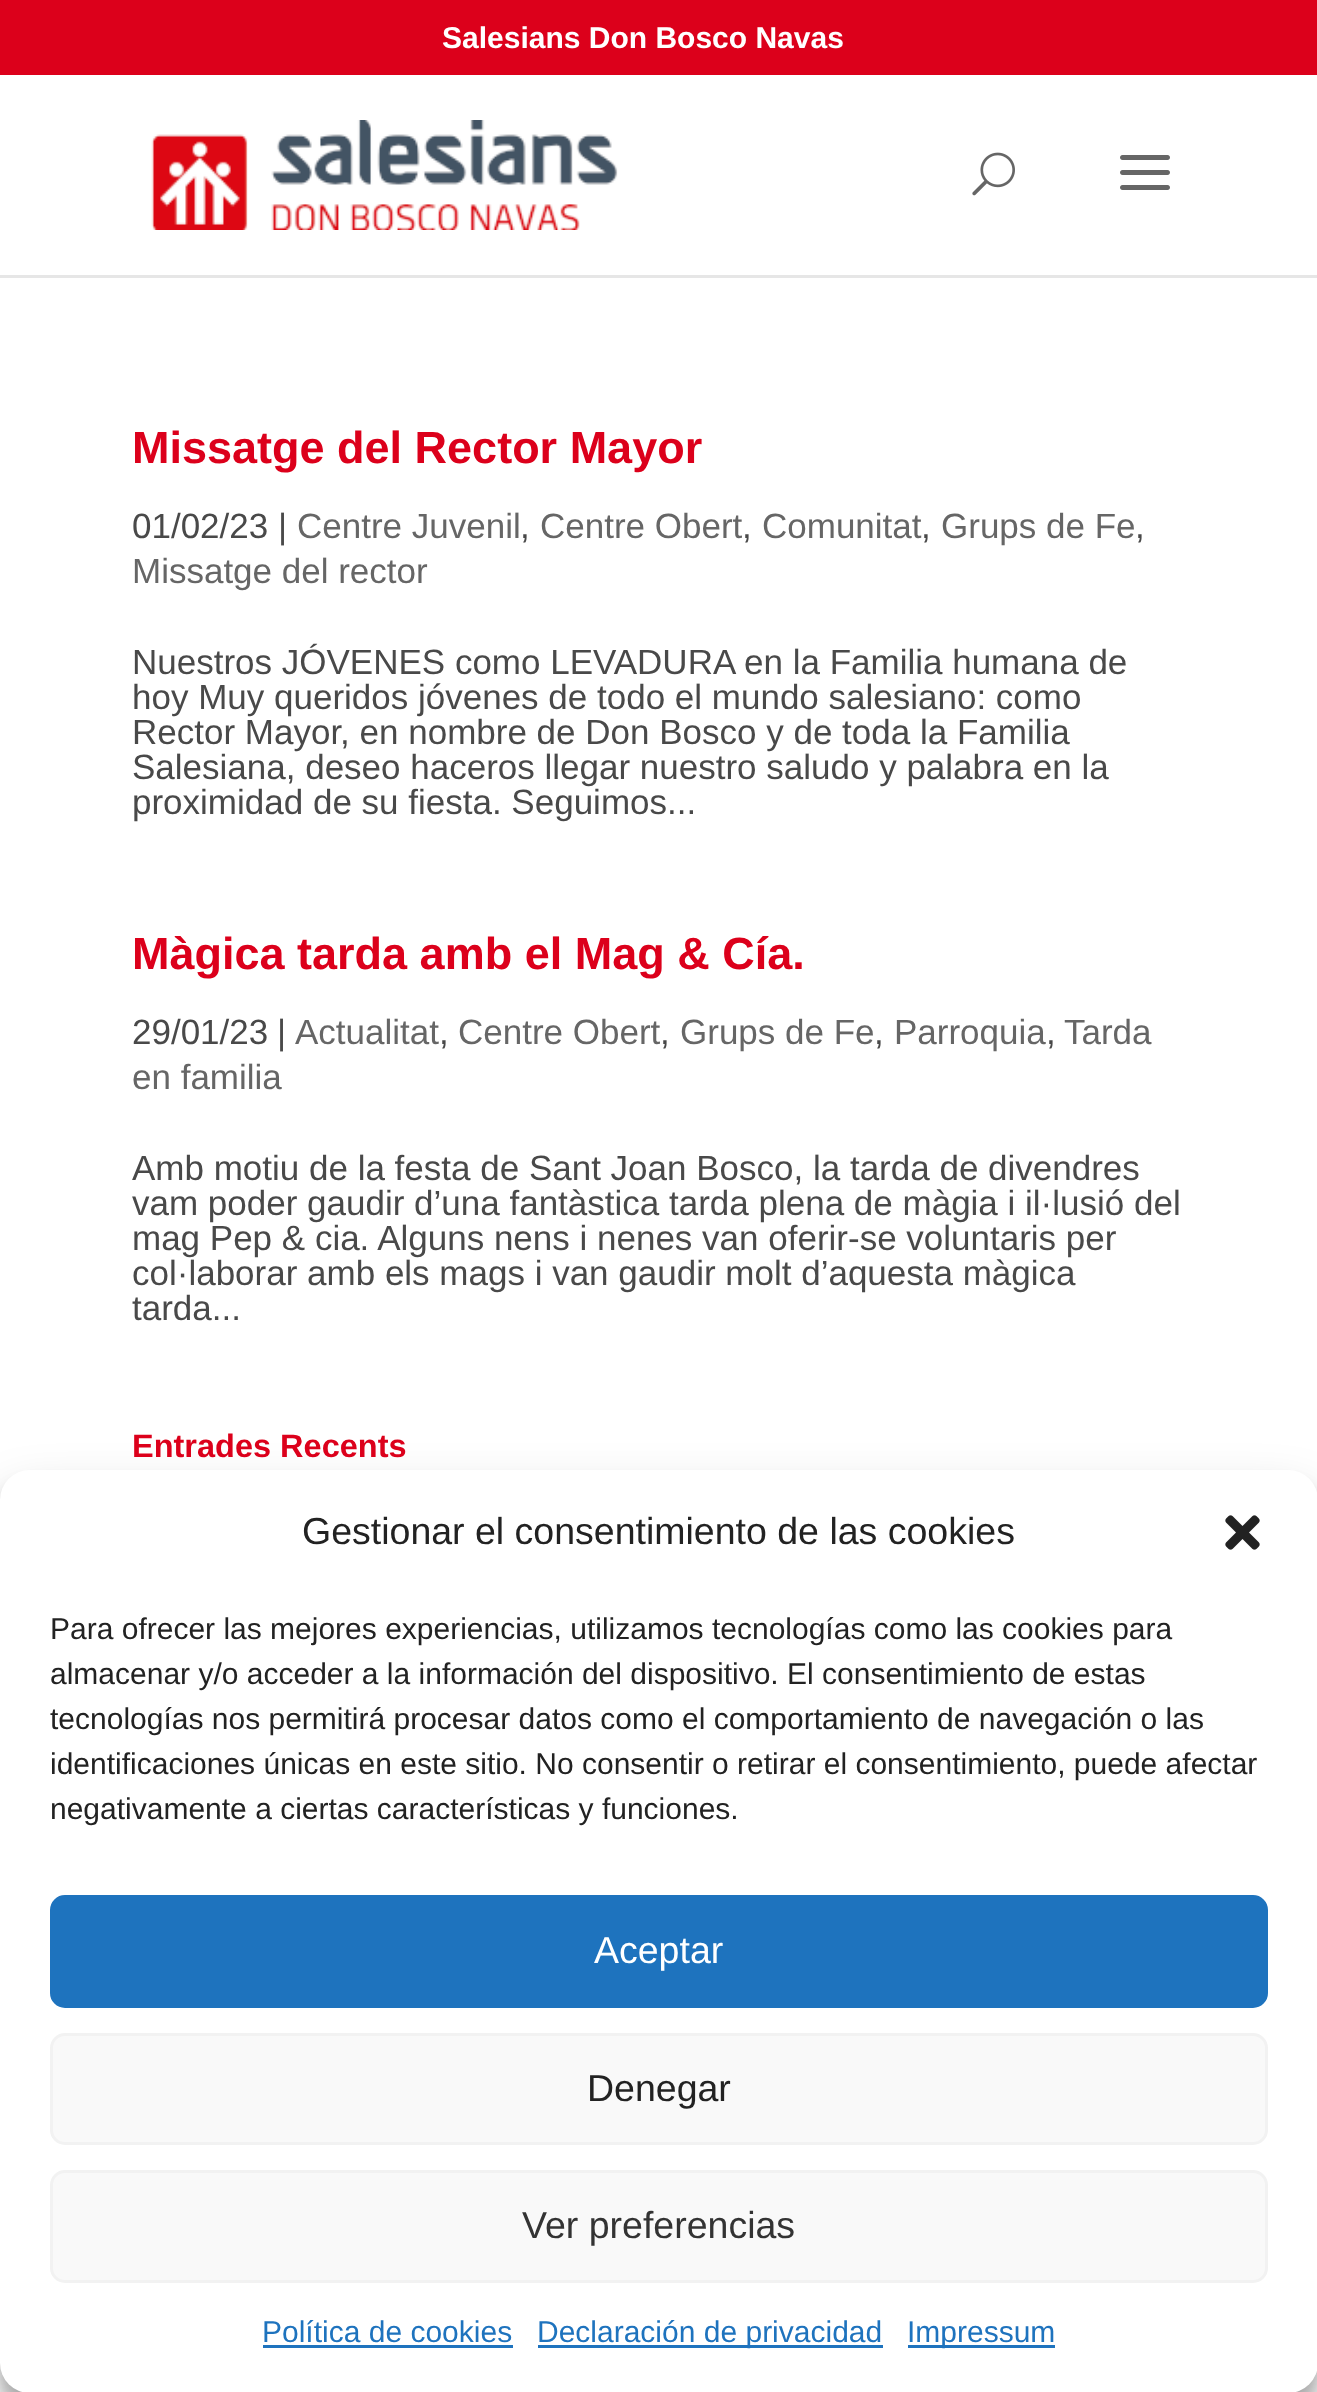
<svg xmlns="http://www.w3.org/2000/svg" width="1317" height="2392">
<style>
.a{font:bold 30px Liberation Sans;fill:#fff}
.b{font:bold 45px Liberation Sans;fill:#dc001b}
.c{font:35px Liberation Sans;fill:#494949}
.d{font:35px Liberation Sans;fill:#666}
.e{font:bold 32.5px Liberation Sans;fill:#dc001b}
.f{font:37.5px Liberation Sans;fill:#222}
.g{font:30px Liberation Sans;fill:#222}
.h{font:37.5px Liberation Sans;fill:#fff}
.i{font:37.5px Liberation Sans;fill:#333}
.j{font:30px Liberation Sans;fill:#1e73be}
</style>
<rect width="100%" height="100%" fill="#fff"/>
<path fill="#dc001b" d="M0 0h1317v75H0z"/>
<path fill="#e6e6e6" d="M0 275v3h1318v-200v197z"/>
<image href="1.png" x="151" y="120" width="467" height="110"/>
<image href="2.png" x="972" y="152" width="43" height="44"/>
<image href="3.png" x="1120" y="155" width="50" height="35"/>
<rect fill="#0000003b" filter="blur(7.5px)" y="1485" width="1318" height="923" rx="30"/>
<rect fill="#00000030" filter="blur(25px)" y="1495" width="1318" height="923" rx="30"/>
<rect fill="#fff" y="1470" width="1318" height="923" rx="30"/>
<image href="4.png" x="1225" y="1515" width="35" height="35"/>
<rect fill="#1e73be" stroke="#1e73be" stroke-width="3" x="51.5" y="1896.5" width="1215" height="110" rx="13.5"/>
<rect fill="#f9f9f9" stroke="#f2f2f2" stroke-width="3" x="51.5" y="2034.5" width="1215" height="109" rx="13.5"/>
<rect fill="#f9f9f9" stroke="#f2f2f2" stroke-width="3" x="51.5" y="2171.5" width="1215" height="110" rx="13.5"/>
<path fill="#1e73be" d="M263 2345h250v3H263z"/>
<path fill="#1e73be" d="M538 2345h345v3H538z"/>
<path fill="#1e73be" d="M908 2345h147v3H908z"/>
<text class="a" x="442" y="48">Salesians Don Bosco Navas</text>
<text class="b" x="132" y="463">Missatge del Rector Mayor</text>
<text class="c" x="132" y="538">01/02/23 |</text>
<text class="d" x="297" y="538">Centre Juvenil</text>
<text class="c" x="520" y="538">,</text>
<text class="d" x="540" y="538">Centre Obert</text>
<text class="c" x="742" y="538">,</text>
<text class="d" x="762" y="538">Comunitat</text>
<text class="c" x="921" y="538">,</text>
<text class="d" x="941" y="538">Grups de Fe</text>
<text class="c" x="1135" y="538">,</text>
<text class="d" x="132" y="583">Missatge del rector</text>
<text class="c" x="132" y="674">Nuestros JÓVENES como LEVADURA en la Familia humana de</text>
<text class="c" x="132" y="709">hoy Muy queridos jóvenes de todo el mundo salesiano: como</text>
<text class="c" x="132" y="744">Rector Mayor, en nombre de Don Bosco y de toda la Familia</text>
<text class="c" x="132" y="779">Salesiana, deseo haceros llegar nuestro saludo y palabra en la</text>
<text class="c" x="132" y="814">proximidad de su fiesta. Seguimos...</text>
<text class="b" x="132" y="969">Màgica tarda amb el Mag &amp; Cía.</text>
<text class="c" x="132" y="1044">29/01/23</text>
<text class="c" x="277" y="1044">|</text>
<text class="d" x="295" y="1044">Actualitat</text>
<text class="c" x="439" y="1044">,</text>
<text class="d" x="458" y="1044">Centre Obert</text>
<text class="c" x="660" y="1044">,</text>
<text class="d" x="680" y="1044">Grups de Fe</text>
<text class="c" x="874" y="1044">,</text>
<text class="d" x="894" y="1044">Parroquia</text>
<text class="c" x="1046" y="1044">,</text>
<text class="d" x="1064" y="1044">Tarda</text>
<text class="d" x="132" y="1089">en familia</text>
<text class="c" x="132" y="1180">Amb motiu de la festa de Sant Joan Bosco, la tarda de divendres</text>
<text class="c" x="132" y="1215">vam poder gaudir d’una fantàstica tarda plena de màgia i il·lusió del</text>
<text class="c" x="132" y="1250">mag Pep &amp; cia. Alguns nens i nenes van oferir-se voluntaris per</text>
<text class="c" x="132" y="1285">col·laborar amb els mags i van gaudir molt d’aquesta màgica</text>
<text class="c" x="132" y="1320">tarda...</text>
<text class="e" x="132" y="1457">Entrades Recents</text>
<text class="f" x="302" y="1544">Gestionar el consentimiento de las cookies</text>
<text class="g" x="50" y="1639">Para ofrecer las mejores experiencias, utilizamos tecnologías como las cookies para</text>
<text class="g" x="50" y="1684">almacenar y/o acceder a la información del dispositivo. El consentimiento de estas</text>
<text class="g" x="50" y="1729">tecnologías nos permitirá procesar datos como el comportamiento de navegación o las</text>
<text class="g" x="50" y="1774">identificaciones únicas en este sitio. No consentir o retirar el consentimiento, puede afectar</text>
<text class="g" x="50" y="1819">negativamente a ciertas características y funciones.</text>
<text class="h" x="594" y="1963">Aceptar</text>
<text class="f" x="587" y="2101">Denegar</text>
<text class="i" x="522" y="2238">Ver preferencias</text>
<text class="j" x="262" y="2342">Política de cookies</text>
<text class="j" x="537" y="2342">Declaración de privacidad</text>
<text class="j" x="907" y="2342">Impressum</text>
</svg>
